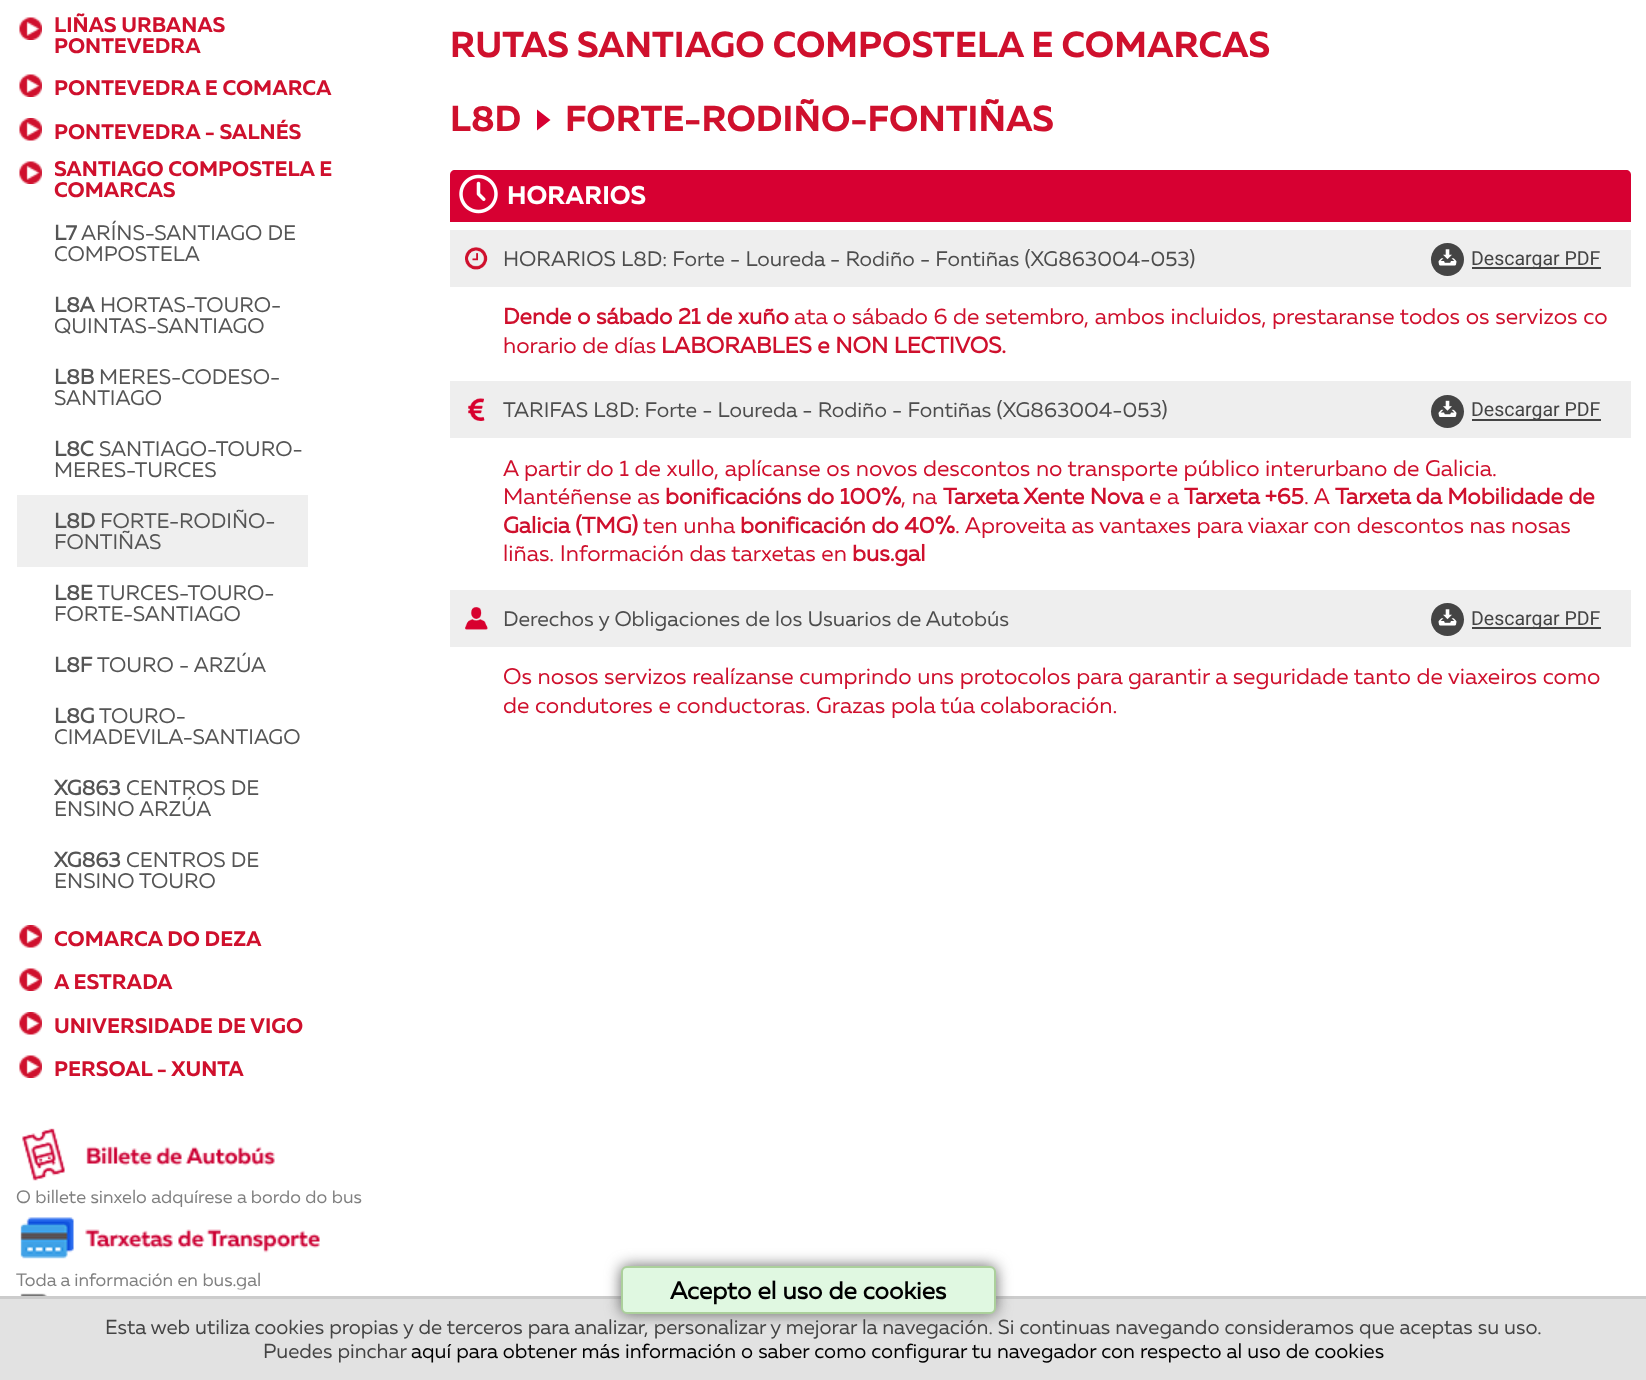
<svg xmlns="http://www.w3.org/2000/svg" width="1646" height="1380">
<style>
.a{font:bold 21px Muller;fill:#cf102d}
.b{font:bold 21px 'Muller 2';fill:#555}
.c{font:21px Muller;fill:#555}
.d{font:18px Muller;fill:#808080}
.e{font:bold 36px Muller;fill:#cf102d}
.f{font:bold 25.5px Muller;fill:#fff}
.g{font:21px Muller;fill:#4d4d4d}
.h{font:19.5px Roboto;fill:#444}
.i{font:bold 22.5px 'Muller 2';fill:#cf102d}
.j{font:22.5px Muller;fill:#cf102d}
.k{font:bold 24.25px 'Muller 2';fill:#000}
.l{font:20.25px Muller;fill:#444}
.m{font:20.25px Muller;fill:#000}
</style>
<rect width="100%" height="100%" fill="#fff"/>
<image href="1.png" x="19" y="17" width="23" height="23"/>
<image href="1.png" x="19" y="74" width="23" height="23"/>
<image href="2.png" x="19" y="118" width="23" height="23"/>
<image href="1.png" x="19" y="161" width="23" height="23"/>
<path fill="#efefef" d="M17 495h291v72H17z"/>
<image href="2.png" x="19" y="925" width="23" height="23"/>
<image href="1.png" x="19" y="968" width="23" height="23"/>
<image href="2.png" x="19" y="1012" width="23" height="23"/>
<image href="1.png" x="19" y="1055" width="23" height="23"/>
<image href="3.png" x="22" y="1128" width="253" height="53"/>
<image href="4.png" x="20" y="1217" width="300" height="42"/>
<path fill="#d70032" d="M537 130.5v-21l13.5 10.5z"/>
<path fill="#d70032" d="M455 170h1171c3 0 5 2 5 5v47h-1181v-47c0-3 2-5 5-5z"/>
<image href="6.png" x="459" y="174" width="39" height="40"/>
<path fill="#eee" d="M450 230h1181v57H450z"/>
<image href="7.png" x="465" y="247" width="23" height="23"/>
<circle fill="#444" cx="1447.5" cy="259.5" r="16.5"/>
<image href="8.png" x="1438" y="249" width="19" height="17"/>
<path fill="#444" d="M1472 267h129v2H1472z"/>
<path fill="#eee" d="M450 381h1181v57H450z"/>
<image href="9.png" x="468" y="398" width="17" height="23"/>
<circle fill="#444" cx="1447.5" cy="411.5" r="16.5"/>
<image href="10.png" x="1438" y="400" width="19" height="17"/>
<path fill="#444" d="M1472 419h129v2H1472z"/>
<path fill="#eee" d="M450 590h1181v57H450z"/>
<image href="11.png" x="465" y="607" width="23" height="23"/>
<circle fill="#444" cx="1447.5" cy="619.5" r="16.5"/>
<image href="8.png" x="1438" y="609" width="19" height="17"/>
<path fill="#444" d="M1472 627h129v2H1472z"/>
<path fill="#e2e2e2" d="M0 1299h1646v81H0z"/>
<path fill="#ccc" d="M0 1296h1646v3H0z"/>
<rect fill="#666" filter="blur(7.5px)" x="621" y="1266" width="375" height="48" rx="6"/>
<rect fill="#e0f8e1" stroke="#abd09b" stroke-width="2" x="622" y="1267" width="373" height="46" rx="5"/>
<text class="a" x="54" y="32">LIÑAS URBANAS</text>
<text class="a" x="54" y="53">PONTEVEDRA</text>
<text class="a" x="54" y="95">PONTEVEDRA E COMARCA</text>
<text class="a" x="54" y="139">PONTEVEDRA - SALNÉS</text>
<text class="a" x="54" y="176">SANTIAGO COMPOSTELA E</text>
<text class="a" x="54" y="197">COMARCAS</text>
<text class="b" x="54" y="240">L7</text>
<text class="c" x="81" y="240">ARÍNS-SANTIAGO DE</text>
<text class="c" x="54" y="261">COMPOSTELA</text>
<text class="b" x="54" y="312">L8A</text>
<text class="c" x="100" y="312">HORTAS-TOURO-</text>
<text class="c" x="54" y="333">QUINTAS-SANTIAGO</text>
<text class="b" x="54" y="384">L8B</text>
<text class="c" x="99" y="384">MERES-CODESO-</text>
<text class="c" x="54" y="405">SANTIAGO</text>
<text class="b" x="54" y="456">L8C</text>
<text class="c" x="99" y="456">SANTIAGO-TOURO-</text>
<text class="c" x="54" y="477">MERES-TURCES</text>
<text class="b" x="54" y="528">L8D</text>
<text class="c" x="100" y="528">FORTE-RODIÑO-</text>
<text class="c" x="54" y="549">FONTIÑAS</text>
<text class="b" x="54" y="600">L8E</text>
<text class="c" x="97" y="600">TURCES-TOURO-</text>
<text class="c" x="54" y="621">FORTE-SANTIAGO</text>
<text class="b" x="54" y="672">L8F</text>
<text class="c" x="97" y="672">TOURO - ARZÚA</text>
<text class="b" x="54" y="723">L8G</text>
<text class="c" x="99" y="723">TOURO-</text>
<text class="c" x="54" y="744">CIMADEVILA-SANTIAGO</text>
<text class="b" x="54" y="795">XG863</text>
<text class="c" x="126" y="795">CENTROS DE</text>
<text class="c" x="54" y="816">ENSINO ARZÚA</text>
<text class="b" x="54" y="867">XG863</text>
<text class="c" x="126" y="867">CENTROS DE</text>
<text class="c" x="54" y="888">ENSINO TOURO</text>
<text class="a" x="54" y="946">COMARCA DO DEZA</text>
<text class="a" x="54" y="989">A ESTRADA</text>
<text class="a" x="54" y="1033">UNIVERSIDADE DE VIGO</text>
<text class="a" x="54" y="1076">PERSOAL - XUNTA</text>
<text class="d" x="16" y="1203">O billete sinxelo adquírese a bordo do bus</text>
<text class="d" x="16" y="1286">Toda a información en bus.gal</text>
<image href="5.png" x="20" y="1289" width="228" height="7"/>
<text class="e" x="450" y="57">RUTAS SANTIAGO COMPOSTELA E COMARCAS</text>
<text class="e" x="450" y="131">L8D</text>
<text class="e" x="565" y="131">FORTE-RODIÑO-FONTIÑAS</text>
<text class="f" x="507" y="204">HORARIOS</text>
<text class="g" x="503" y="266">HORARIOS L8D: Forte - Loureda - Rodiño - Fontiñas (XG863004-053)</text>
<text class="h" x="1471" y="265">Descargar PDF</text>
<text class="i" x="503" y="324">Dende o sábado 21 de xuño</text>
<text class="j" x="794" y="324">ata o sábado 6 de setembro, ambos incluidos, prestaranse todos os servizos co</text>
<text class="j" x="503" y="353">horario de días</text>
<text class="i" x="661" y="353">LABORABLES e NON LECTIVOS.</text>
<text class="g" x="503" y="417">TARIFAS L8D: Forte - Loureda - Rodiño - Fontiñas (XG863004-053)</text>
<text class="h" x="1471" y="416">Descargar PDF</text>
<text class="j" x="503" y="476">A partir do 1 de xullo, aplícanse os novos descontos no transporte público interurbano de Galicia.</text>
<text class="j" x="503" y="504">Mantéñense as</text>
<text class="i" x="665" y="504">bonificacións do 100%</text>
<text class="j" x="901" y="504">, na</text>
<text class="i" x="943" y="504">Tarxeta Xente Nova</text>
<text class="j" x="1149" y="504">e a</text>
<text class="i" x="1184" y="504">Tarxeta +65</text>
<text class="j" x="1304" y="504">. A</text>
<text class="i" x="1335" y="504">Tarxeta da Mobilidade de</text>
<text class="i" x="503" y="533">Galicia (TMG)</text>
<text class="j" x="643" y="533">ten unha</text>
<text class="i" x="740" y="533">bonificación do 40%</text>
<text class="j" x="955" y="533">. Aproveita as vantaxes para viaxar con descontos nas nosas</text>
<text class="j" x="503" y="561">liñas. Información das tarxetas en</text>
<text class="i" x="852" y="561">bus.gal</text>
<text class="g" x="503" y="626">Derechos y Obligaciones de los Usuarios de Autobús</text>
<text class="h" x="1471" y="625">Descargar PDF</text>
<text class="j" x="503" y="684">Os nosos servizos realízanse cumprindo uns protocolos para garantir a seguridade tanto de viaxeiros como</text>
<text class="j" x="503" y="713">de condutores e conductoras. Grazas pola túa colaboración.</text>
<text class="k" x="670" y="1299">Acepto el uso de cookies</text>
<text class="l" x="105" y="1334">Esta web utiliza cookies propias y de terceros para analizar, personalizar y mejorar la navegación. Si continuas navegando consideramos que aceptas su uso.</text>
<text class="l" x="263" y="1358">Puedes pinchar</text>
<text class="m" x="411" y="1358">aquí para obtener más información o saber como configurar tu navegador con respecto al uso de cookies</text>
</svg>
